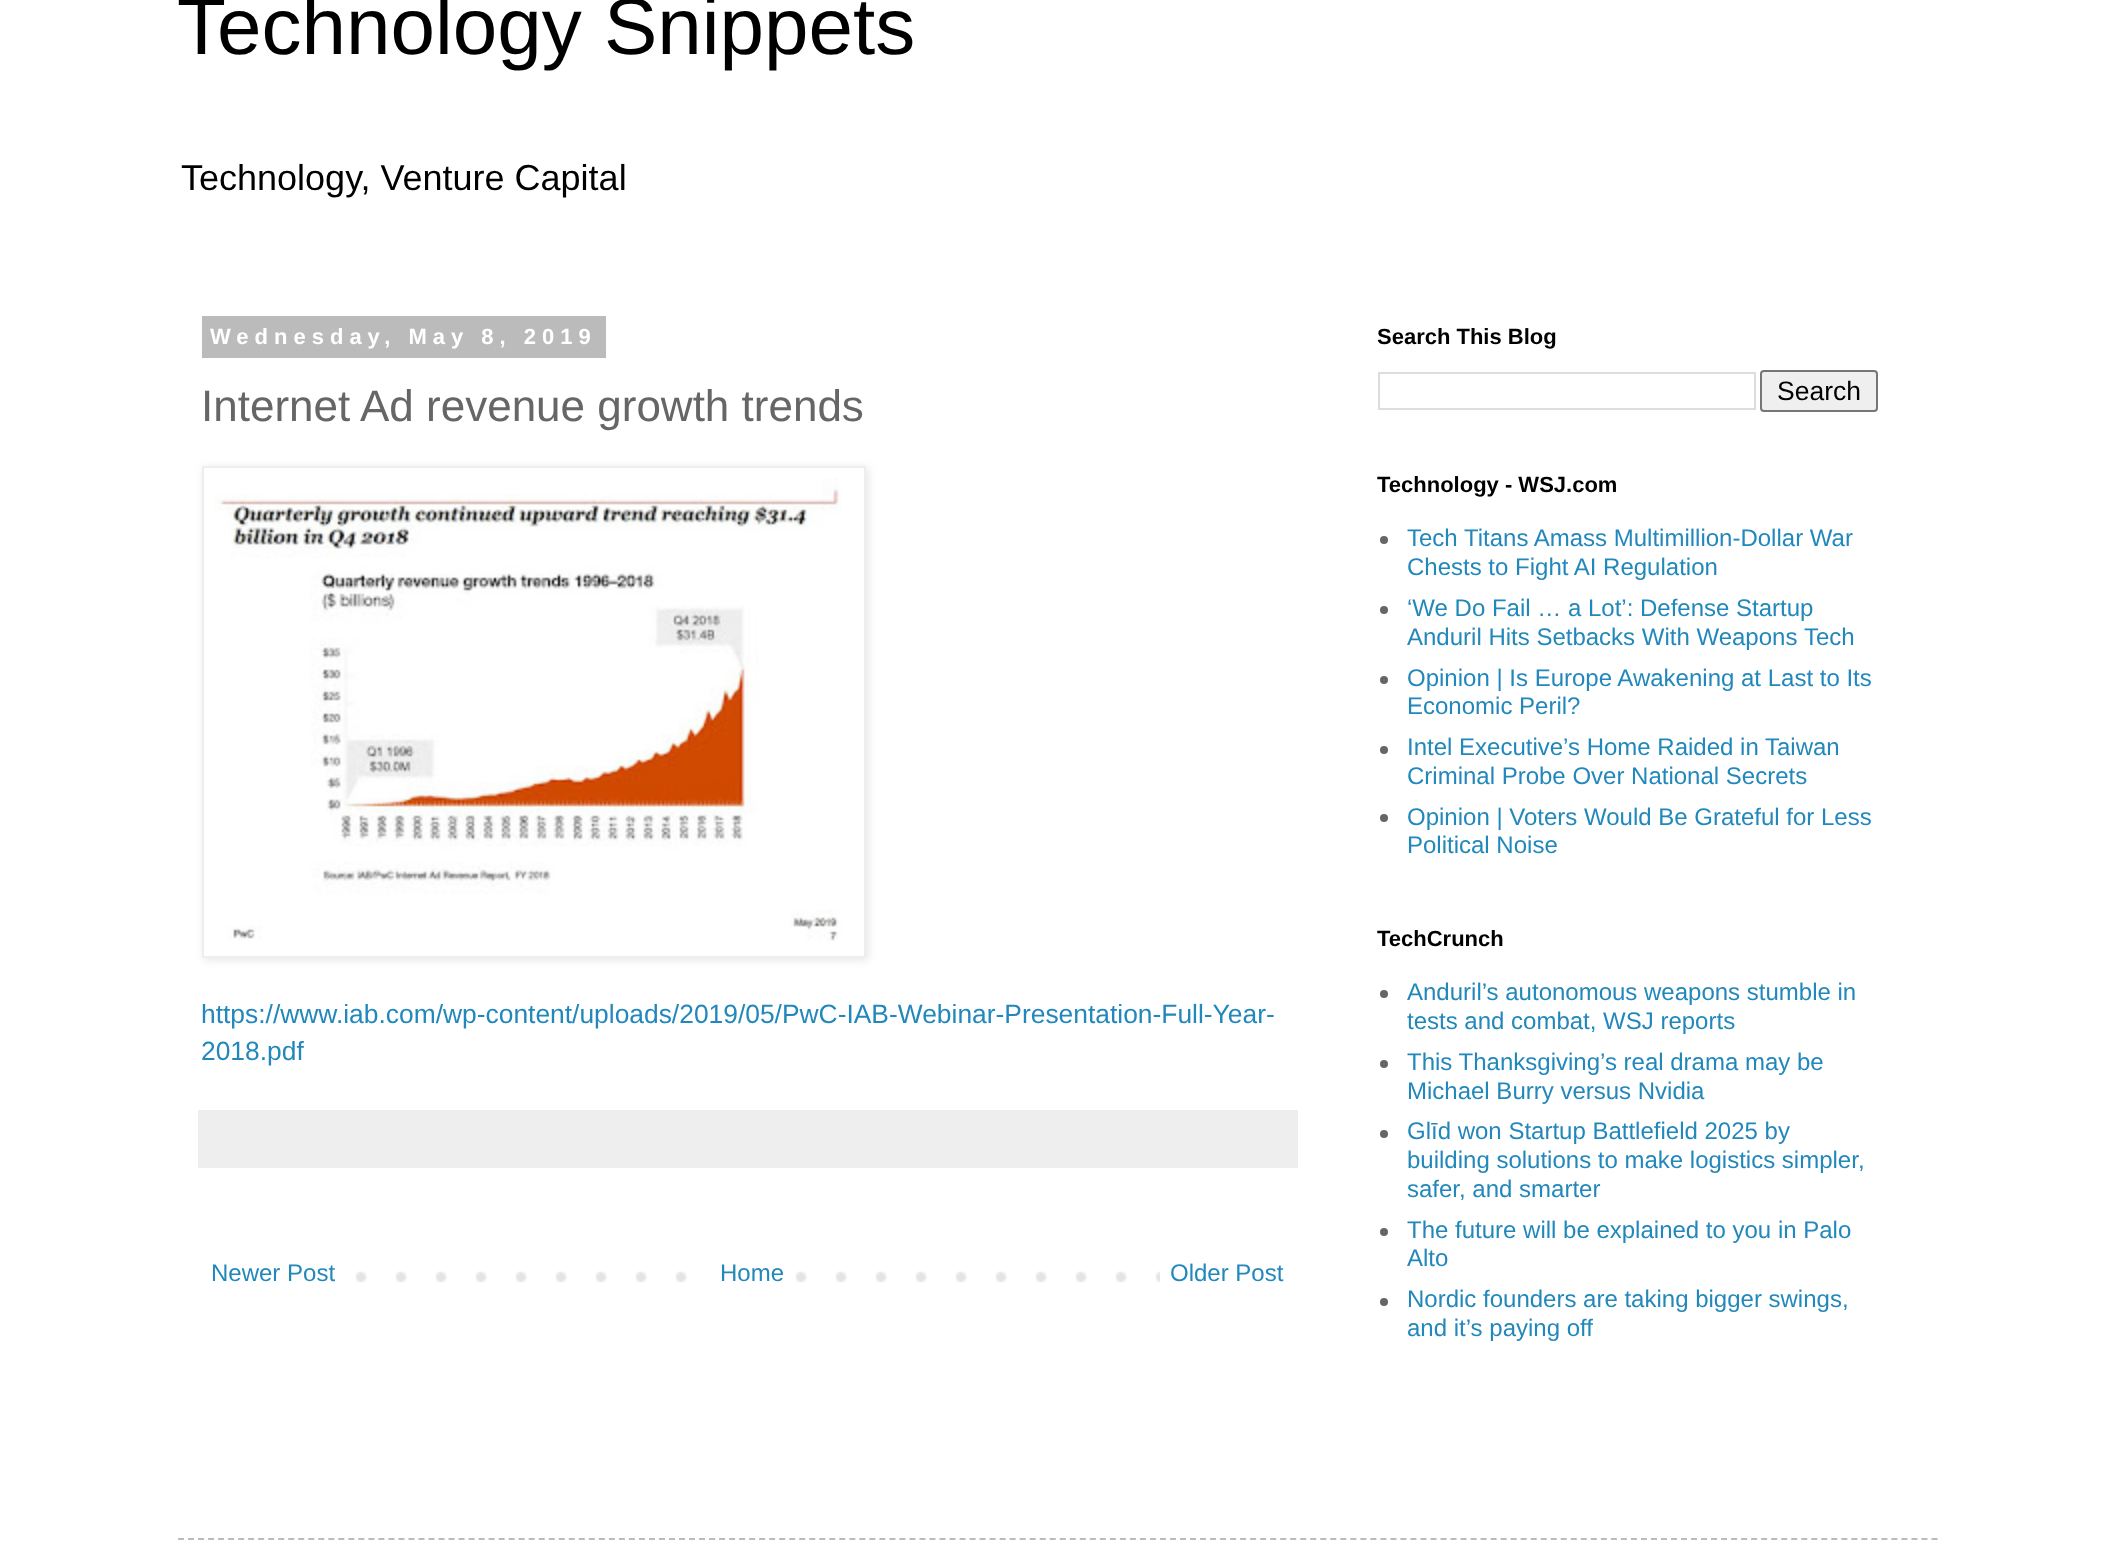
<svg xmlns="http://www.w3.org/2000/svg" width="2114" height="1553">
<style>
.a{font:80px Liberation Sans;fill:#000}
.b{font:36px Liberation Sans;fill:#000}
.c{font:bold 22px Liberation Sans;letter-spacing:6px;fill:#fff}
.d{font:44px Liberation Sans;fill:#666}
.e{font:26.4px Liberation Sans;fill:#28b}
.f{font:24px Liberation Sans;fill:#28b}
.g{font:bold 22px Liberation Sans;fill:#000}
.h{font:26.5px Liberation Sans;fill:#000}
</style>
<defs>
<clipPath id="clip1"><path d="M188 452h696v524h-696zm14 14h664v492h-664z" clip-rule="evenodd"/></clipPath>
</defs>
<rect width="100%" height="100%" fill="#fff"/>
<path fill="#bbb" d="M202 316h404v42H202z"/>
<g clip-path="url(#clip1)">
<path fill="#0000001a" filter="blur(5px)" d="M204 468h664v492H204z"/>
</g>
<path fill="none" stroke="#eee" stroke-width="2" d="M203 467h662v490H203z"/>
<image href="1.png" x="214" y="478" width="628" height="463"/>
<path fill="#eee" d="M198 1110h1100v58H198z"/>
<image href="2.png" x="355" y="1271" width="805" height="12"/>
<path fill="#fff" d="M715 1271h53v12H715z"/>
<path fill="none" stroke="#ddd" stroke-width="2" d="M1379 373h376v36H1379z"/>
<rect fill="#efefef" stroke="#767676" stroke-width="2" x="1761" y="371" width="116" height="40" rx="3"/>
<circle fill="#666" cx="1384" cy="540" r="4"/>
<circle fill="#666" cx="1384" cy="610" r="4"/>
<circle fill="#666" cx="1384" cy="680" r="4"/>
<circle fill="#666" cx="1384" cy="750" r="4"/>
<circle fill="#666" cx="1384" cy="818" r="4"/>
<circle fill="#666" cx="1384" cy="994" r="4"/>
<circle fill="#666" cx="1384" cy="1064" r="4"/>
<circle fill="#666" cx="1384" cy="1134" r="4"/>
<circle fill="#666" cx="1384" cy="1232" r="4"/>
<circle fill="#666" cx="1384" cy="1302" r="4"/>
<path fill="none" stroke="#bbb" stroke-width="2" stroke-dasharray="6 4.02" d="M178 1539h1760"/>
<text class="a" x="177" y="54">Technology Snippets</text>
<text class="b" x="181" y="190">Technology, Venture Capital</text>
<text class="c" x="210" y="344">Wednesday, May 8, 2019</text>
<text class="d" x="201" y="421">Internet Ad revenue growth trends</text>
<text class="e" x="201" y="1023">https://www.iab.com/wp-content/uploads/2019/05/PwC-IAB-Webinar-Presentation-Full-Year-</text>
<text class="e" x="201" y="1060">2018.pdf</text>
<text class="f" x="211" y="1281">Newer Post</text>
<text class="f" x="720" y="1281">Home</text>
<text class="f" x="1170" y="1281">Older Post</text>
<text class="g" x="1377" y="344">Search This Blog</text>
<text class="h" x="1777" y="400">Search</text>
<text class="g" x="1377" y="492">Technology - WSJ.com</text>
<text class="f" x="1407" y="546">Tech Titans Amass Multimillion-Dollar War</text>
<text class="f" x="1407" y="575">Chests to Fight AI Regulation</text>
<text class="f" x="1407" y="616">‘We Do Fail … a Lot’: Defense Startup</text>
<text class="f" x="1407" y="645">Anduril Hits Setbacks With Weapons</text>
<text class="f" x="1804" y="645">Tech</text>
<text class="f" x="1407" y="686">Opinion | Is Europe Awakening at Last to Its</text>
<text class="f" x="1407" y="714">Economic Peril?</text>
<text class="f" x="1407" y="755">Intel Executive’s Home Raided in Taiwan</text>
<text class="f" x="1407" y="784">Criminal Probe Over National Secrets</text>
<text class="f" x="1407" y="825">Opinion | Voters Would Be Grateful for Less</text>
<text class="f" x="1407" y="853">Political Noise</text>
<text class="g" x="1377" y="946">TechCrunch</text>
<text class="f" x="1407" y="1000">Anduril’s autonomous weapons stumble in</text>
<text class="f" x="1407" y="1029">tests and combat, WSJ reports</text>
<text class="f" x="1407" y="1070">This Thanksgiving’s real drama may be</text>
<text class="f" x="1407" y="1099">Michael Burry versus Nvidia</text>
<text class="f" x="1407" y="1139">Glīd won Startup Battlefield 2025 by</text>
<text class="f" x="1407" y="1168">building solutions to make logistics simpler,</text>
<text class="f" x="1407" y="1197">safer, and smarter</text>
<text class="f" x="1407" y="1238">The future will be explained to you in Palo</text>
<text class="f" x="1407" y="1266">Alto</text>
<text class="f" x="1407" y="1307">Nordic founders are taking bigger swings,</text>
<text class="f" x="1407" y="1336">and it’s paying off</text>
</svg>
